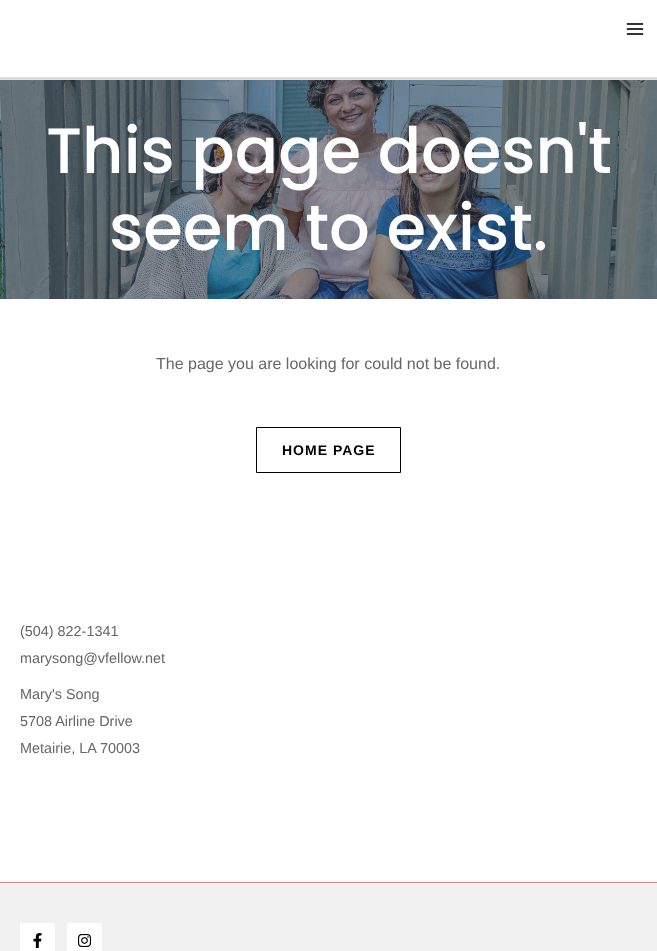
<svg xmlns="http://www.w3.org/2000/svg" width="657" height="951">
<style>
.a{font:500 64px Poppins;fill:#fff}
.b{font:16px Liberation Sans;fill:#666}
.c{font:bold 14px Liberation Sans;letter-spacing:1px;fill:#000}
.d{font:14.4px Liberation Sans;fill:#666}
</style>
<rect width="100%" height="100%" fill="#fff"/>
<path fill="#ddd" d="M0 77h657v3H0z"/>
<image href="1.png" x="626" y="23" width="18" height="12"/>
<image href="2.png" x="0" y="80" width="657" height="219"/>
<path fill="none" stroke="#000" d="M256.5 427.5h144v45H256.5z"/>
<path fill="#f1f1f1" d="M0 883h657v68H0z"/>
<path fill="#f37671" d="M0 882h657v1H0z"/>
<path fill="#fff" d="M20 923h35v28H20z"/>
<image href="3.png" x="33" y="933" width="9" height="15"/>
<path fill="#fff" d="M67 923h35v28H67z"/>
<image href="4.png" x="78" y="934" width="14" height="13"/>
<text class="a" x="46" y="173">This page doesn't</text>
<text class="a" x="109" y="250">seem to exist.</text>
<text class="b" x="156" y="369">The page you are looking for could not be found.</text>
<text class="c" x="282" y="455">HOME PAGE</text>
<text class="d" x="20" y="636">(504) 822-1341</text>
<text class="d" x="20" y="663">marysong@vfellow.net</text>
<text class="d" x="20" y="699">Mary's Song</text>
<text class="d" x="20" y="726">5708 Airline Drive</text>
<text class="d" x="20" y="753">Metairie, LA 70003</text>
</svg>
